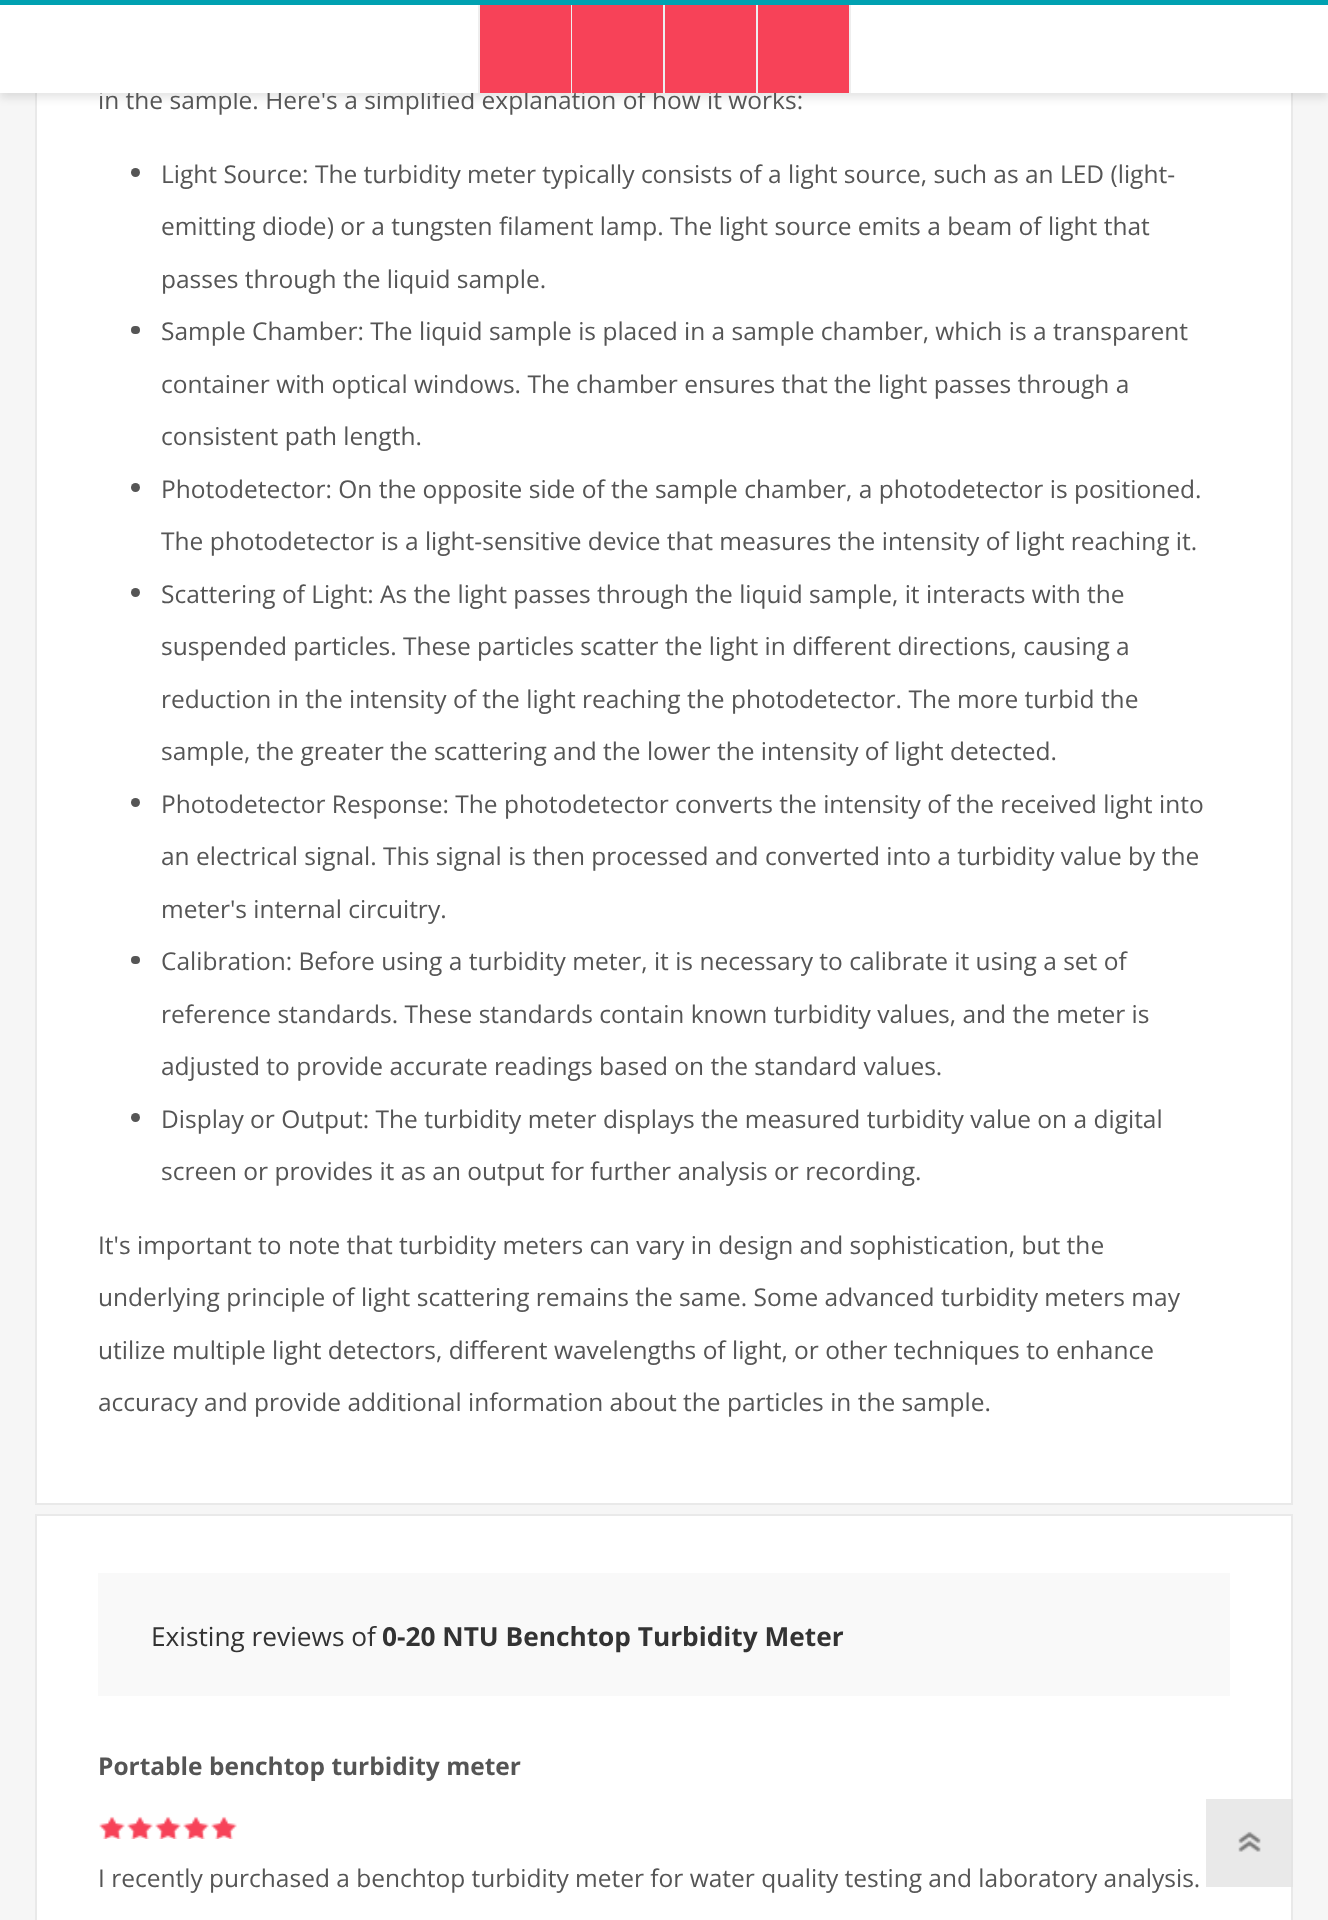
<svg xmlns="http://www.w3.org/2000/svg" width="1328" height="1920">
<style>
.a{font:24.5px Open Sans;fill:#555}
.b{font:26.25px Open Sans;fill:#333}
.c{font:bold 26.25px Open Sans;fill:#333}
.d{font:bold 24.5px Open Sans;fill:#555}
</style>
<rect width="100%" height="100%" fill="#f6f6f6"/>
<path fill="#fff" d="M37 93h1254v1410H37z"/>
<path fill="none" stroke="#e9e9e9" stroke-width="2" d="M36 -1h1256v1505H36z"/>
<path fill="#0000001a" filter="blur(4.5px)" d="M0 5h1328v93H0z"/>
<path fill="#00a1b1" d="M0 0h1328v5H0z"/>
<circle fill="#555" cx="135.5" cy="172.5" r="4.5"/>
<rect fill="#555" x="131" y="326" width="9" height="8" rx="4"/>
<circle fill="#555" cx="135.5" cy="487.5" r="4.5"/>
<circle fill="#555" cx="135.5" cy="592.5" r="4.5"/>
<circle fill="#555" cx="135.5" cy="802.5" r="4.5"/>
<rect fill="#555" x="131" y="956" width="9" height="8" rx="4"/>
<circle fill="#555" cx="135.5" cy="1117.5" r="4.5"/>
<path fill="#fff" stroke="#e9e9e9" stroke-width="2" d="M36 1515h1256v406H36z"/>
<path fill="#f9f9f9" d="M98 1573h1132v123H98z"/>
<image href="1.png" x="100" y="1816" width="136" height="1"/>
<path fill="#f74258" d="M99 1817h138v22H99z"/>
<image href="2.png" x="98" y="1817" width="140" height="22"/>
<path fill="#e1e1e1bf" d="M1206 1799h87v88H1206z"/>
<image href="3.png" x="1238" y="1831" width="23" height="21"/>
<text class="a" x="98" y="109">in the sample. Here's a simplified explanation of how it works:</text>
<path fill="#fff" d="M0 5h1328v88H0z"/>
<path fill="#eee" d="M849 5h2v88H849z"/>
<path fill="#f74258" d="M758 5h91v88H758z"/>
<path fill="#eee" d="M756 5h2v88H756z"/>
<path fill="#f74258" d="M665 5h91v88H665z"/>
<path fill="#eee" d="M663 5h2v88H663z"/>
<path fill="#f74258" d="M572 5h91v88H572z"/>
<path fill="#eee" d="M478 5h2v88H478z"/>
<path fill="#eee" d="M571 5h1v88H571z"/>
<path fill="#f74258" d="M480 5h91v88H480z"/>
<text class="a" x="161" y="183">Light Source: The turbidity meter typically consists of a light source, such as an LED (light-</text>
<text class="a" x="161" y="235">emitting diode) or a tungsten filament lamp. The light source emits a beam of light that</text>
<text class="a" x="161" y="288">passes through the liquid sample.</text>
<text class="a" x="161" y="340">Sample Chamber: The liquid sample is placed in a sample chamber, which is a transparent</text>
<text class="a" x="161" y="393">container with optical windows. The chamber ensures that the light passes through a</text>
<text class="a" x="161" y="445">consistent path length.</text>
<text class="a" x="161" y="498">Photodetector: On the opposite side of the sample chamber, a photodetector is positioned.</text>
<text class="a" x="161" y="550">The photodetector is a light-sensitive device that measures the intensity of light reaching it.</text>
<text class="a" x="161" y="603">Scattering of Light: As the light passes through the liquid sample, it interacts with the</text>
<text class="a" x="161" y="655">suspended particles. These particles scatter the light in different directions, causing a</text>
<text class="a" x="161" y="708">reduction in the intensity of the light reaching the photodetector. The more turbid the</text>
<text class="a" x="161" y="760">sample, the greater the scattering and the lower the intensity of light detected.</text>
<text class="a" x="161" y="813">Photodetector Response: The photodetector converts the intensity of the received light into</text>
<text class="a" x="161" y="865">an electrical signal. This signal is then processed and converted into a turbidity value by the</text>
<text class="a" x="161" y="918">meter's internal circuitry.</text>
<text class="a" x="161" y="970">Calibration: Before using a turbidity meter, it is necessary to calibrate it using a set of</text>
<text class="a" x="161" y="1023">reference standards. These standards contain known turbidity values, and the meter is</text>
<text class="a" x="161" y="1075">adjusted to provide accurate readings based on the standard values.</text>
<text class="a" x="161" y="1128">Display or Output: The turbidity meter displays the measured turbidity value on a digital</text>
<text class="a" x="161" y="1180">screen or provides it as an output for further analysis or recording.</text>
<text class="a" x="98" y="1254">It's important to note that turbidity meters can vary in design and sophistication, but the</text>
<text class="a" x="98" y="1306">underlying principle of light scattering remains the same. Some advanced turbidity meters may</text>
<text class="a" x="98" y="1359">utilize multiple light detectors, different wavelengths of light, or other techniques to enhance</text>
<text class="a" x="98" y="1411">accuracy and provide additional information about the particles in the sample.</text>
<text class="b" x="151" y="1646">Existing reviews of</text>
<text class="c" x="382" y="1646">0-20 NTU Benchtop Turbidity Meter</text>
<text class="d" x="98" y="1775">Portable benchtop turbidity meter</text>
<text class="a" x="98" y="1887">I recently purchased a benchtop turbidity meter for water quality testing and laboratory analysis.</text>
</svg>
